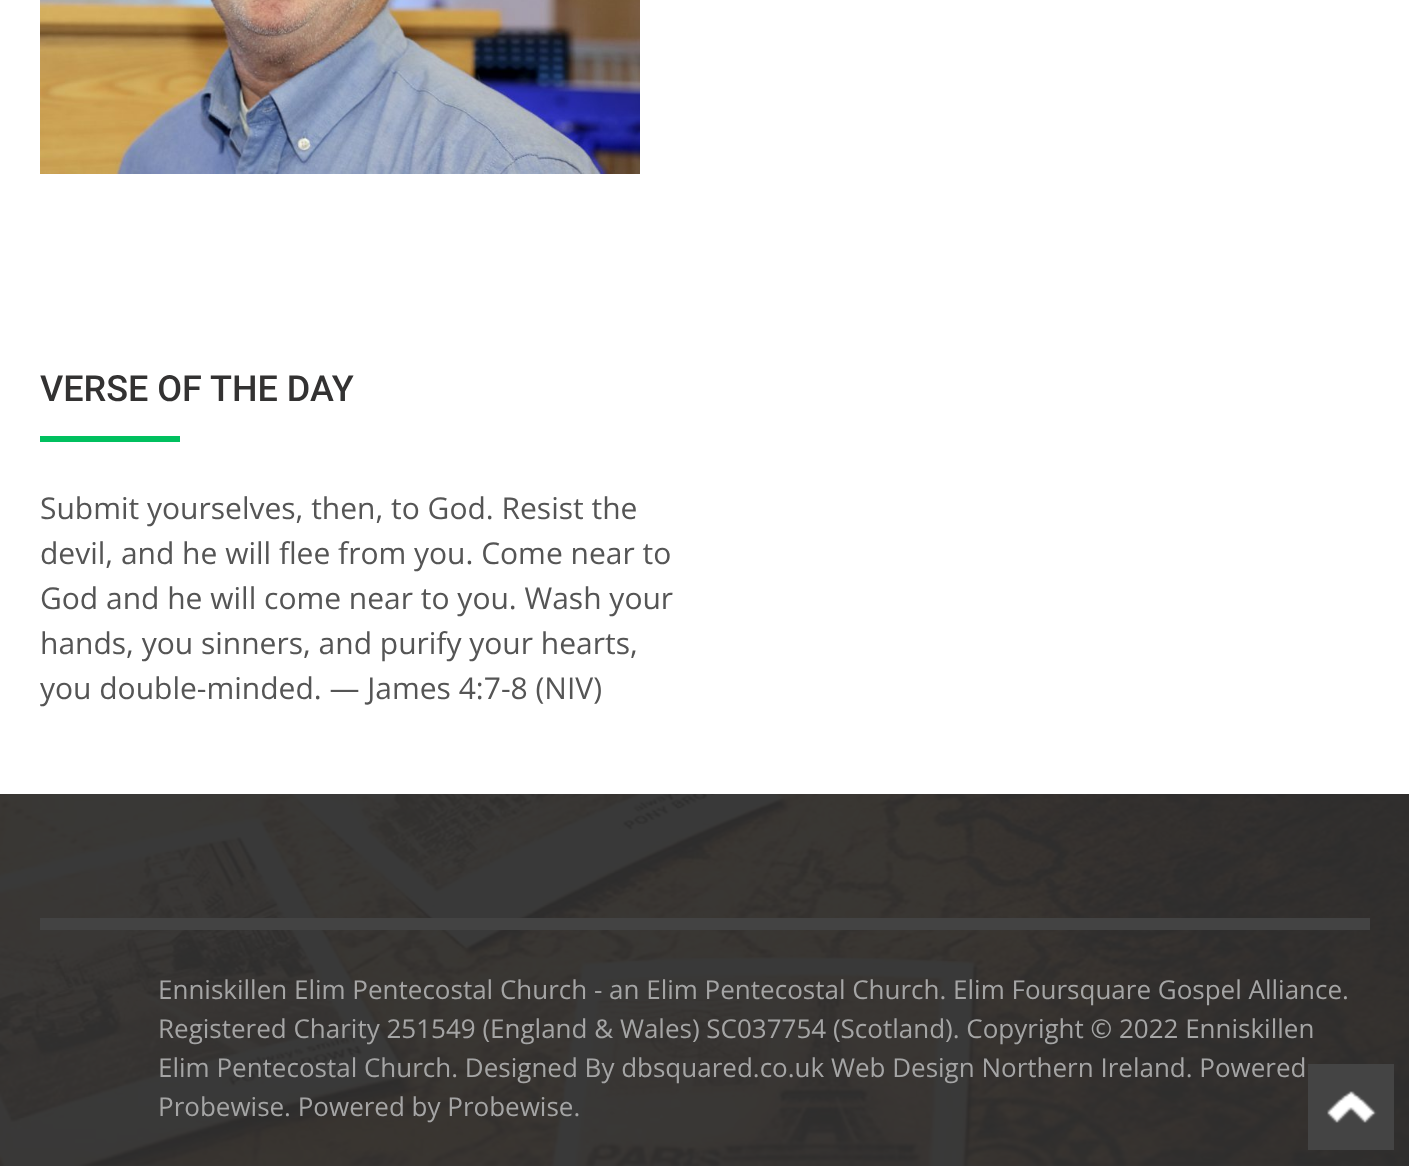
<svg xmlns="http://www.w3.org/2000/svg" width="1409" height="1166">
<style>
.a{font:500 36px Roboto;fill:#333232}
.b{font:30px Open Sans;fill:#555}
.c{font:26px Open Sans;fill:#a5a5a5}
</style>
<rect width="100%" height="100%" fill="#fff"/>
<image href="1.png" x="0" y="794" width="1409" height="372"/>
<image href="2.png" x="40" y="0" width="600" height="174"/>
<path fill="#00c05f" d="M40 436h140v6H40z"/>
<path fill="#2e2e2ef2" d="M0 794h1409v372H0z"/>
<path fill="#434343" d="M40 918h1330v12H40z"/>
<path fill="#444" d="M1308 1064h86v86H1308z"/>
<image href="3.png" x="1327" y="1091" width="50" height="32"/>
<text class="a" x="40" y="401">VERSE OF THE DAY</text>
<text class="b" x="40" y="519">Submit yourselves, then, to God. Resist the</text>
<text class="b" x="40" y="564">devil, and he will flee from you. Come near to</text>
<text class="b" x="40" y="609">God and he will come near to you. Wash your</text>
<text class="b" x="40" y="654">hands, you sinners, and purify your hearts,</text>
<text class="b" x="40" y="699">you double-minded. — James 4:7-8 (NIV)</text>
<text class="c" x="158" y="999">Enniskillen Elim Pentecostal Church - an Elim Pentecostal Church. Elim Foursquare Gospel Alliance.</text>
<text class="c" x="158" y="1038">Registered Charity 251549 (England &amp; Wales) SC037754 (Scotland). Copyright © 2022 Enniskillen</text>
<text class="c" x="158" y="1077">Elim Pentecostal Church. Designed By dbsquared.co.uk Web Design Northern Ireland. Powered</text>
<text class="c" x="158" y="1116">Probewise. Powered by Probewise.</text>
</svg>
